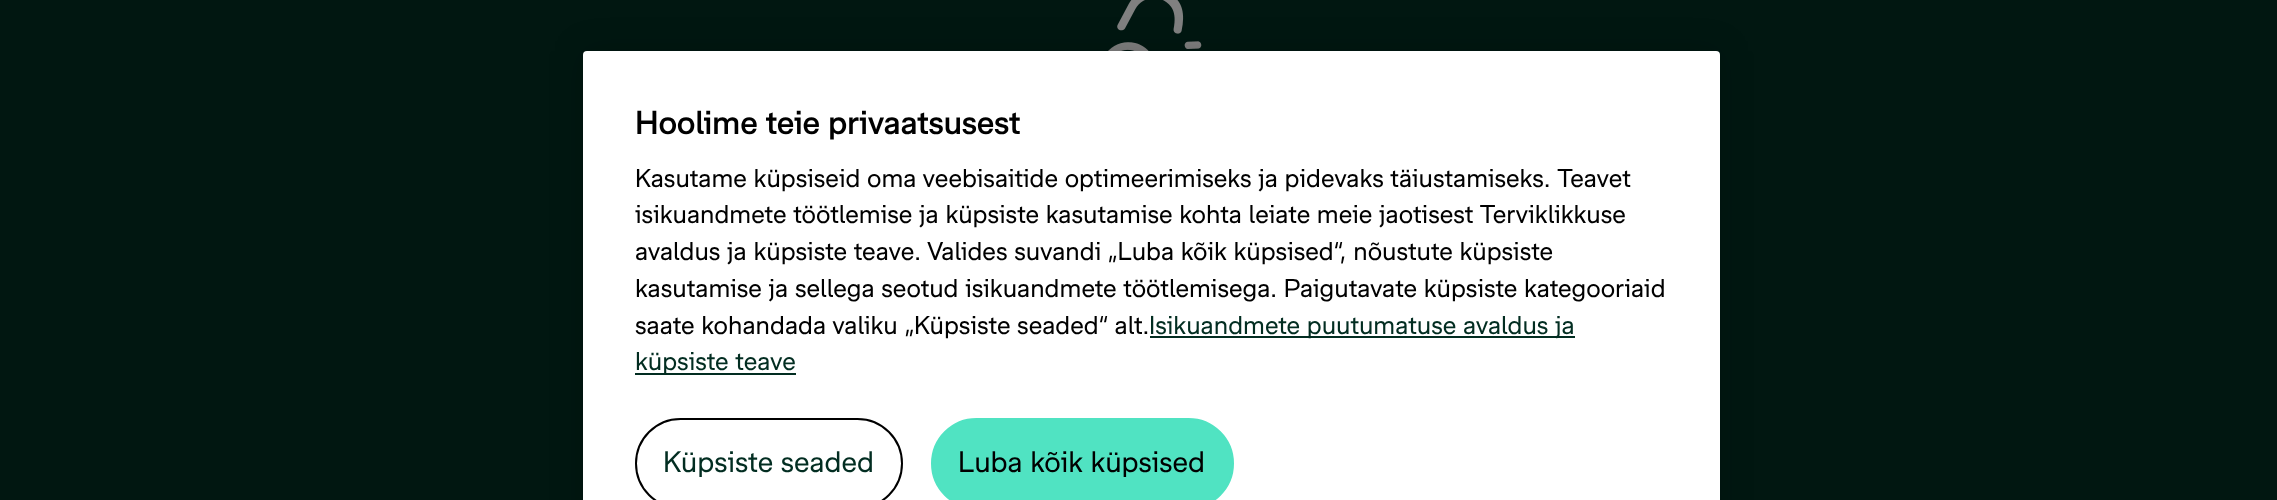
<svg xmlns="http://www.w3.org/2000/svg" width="2277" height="500">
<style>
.a{font:500 31.5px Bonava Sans;letter-spacing:-0.3px;fill:#000}
.b{font:24.5px Bonava Sans;fill:#000}
.c{font:24.5px Bonava Sans;fill:#022d21}
.d{font:28px Bonava Sans;fill:#022d21}
.e{font:28px Bonava Sans;fill:#000}
</style>
<rect width="100%" height="100%" fill="#011711"/>
<image href="1.png" x="1108" y="0" width="94" height="51"/>
<rect fill="#00000033" filter="blur(16px)" x="583" y="51" width="1137" height="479" rx="4"/>
<rect fill="#fff" x="583" y="51" width="1137" height="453" rx="4"/>
<path fill="#022d21" d="M1150 336h425v2H1150z"/>
<path fill="#022d21" d="M635 373h161v2H635z"/>
<rect fill="none" stroke="#000" stroke-width="2" x="636" y="419" width="266" height="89" rx="44.5"/>
<rect fill="#50e3c2" stroke="#50e3c2" stroke-width="2" x="932" y="419" width="301" height="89" rx="44.5"/>
<text class="a" x="635" y="134">Hoolime teie privaatsusest</text>
<text class="b" x="635" y="187">Kasutame küpsiseid oma veebisaitide optimeerimiseks ja pidevaks täiustamiseks.</text>
<text class="b" x="1557" y="187">Teavet</text>
<text class="b" x="635" y="223">isikuandmete töötlemise ja küpsiste kasutamise kohta leiate meie jaotisest Terviklikkuse</text>
<text class="b" x="635" y="260">avaldus ja küpsiste teave. Valides suvandi „Luba kõik küpsised“, nõustute küpsiste</text>
<text class="b" x="635" y="297">kasutamise ja sellega seotud isikuandmete töötlemisega. Paigutavate küpsiste kategooriaid</text>
<text class="b" x="635" y="334">saate kohandada valiku „Küpsiste seaded“ alt.</text>
<text class="c" x="1149" y="334">Isikuandmete puutumatuse avaldus ja</text>
<text class="c" x="635" y="370">küpsiste teave</text>
<text class="d" x="663" y="472">Küpsiste seaded</text>
<text class="e" x="958" y="472">Luba kõik küpsised</text>
</svg>
